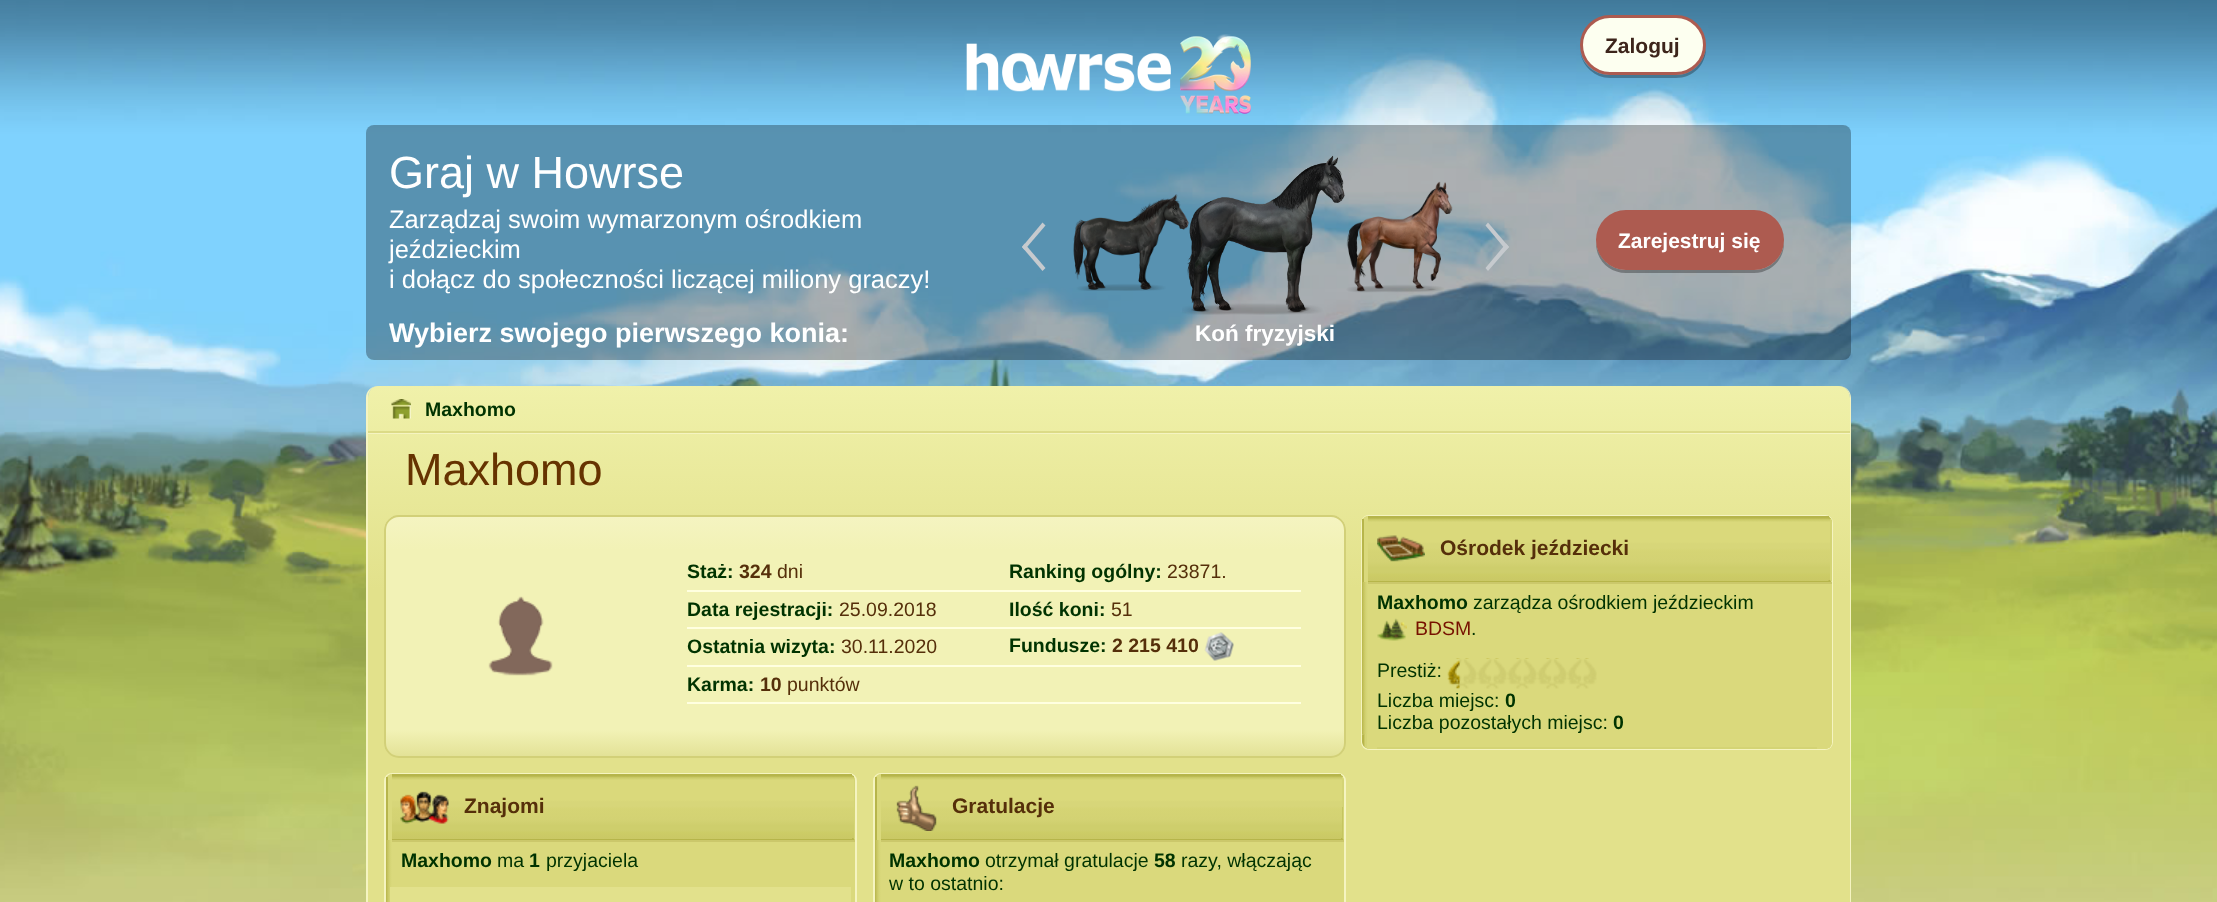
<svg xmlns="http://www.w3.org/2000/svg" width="2217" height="902">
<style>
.a{font:bold 21px Liberation Sans;fill:#3d251b}
.b{font:45px Liberation Sans;fill:#fff}
.c{font:25.5px Liberation Sans;fill:#fff}
.d{font:bold 27px Liberation Sans;fill:#fff}
.e{font:bold 21px Liberation Sans;fill:#fff}
.f{font:bold 22.5px Liberation Sans;fill:#fff}
.g{font:bold 19.5px Liberation Sans;fill:#030}
.h{font:45px Liberation Sans;fill:#630}
.i{font:bold 19.5px Liberation Sans;fill:#552f0a}
.j{font:19.5px Liberation Sans;fill:#552f0a}
.k{font:bold 21px Liberation Sans;fill:#552f0a}
.l{font:19.5px Liberation Sans;fill:#030}
.m{font:19.5px Liberation Sans;fill:#710}
</style>
<defs>
<linearGradient id="g1" gradientUnits="userSpaceOnUse" x1="1108" y1="385" x2="1109" y2="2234"><stop offset="0" stop-color="#f0f1aa"/><stop offset="0.11" stop-color="#e2e18b"/><stop offset="1" stop-color="#e2e18b"/></linearGradient>
<clipPath id="clip1"><rect x="384" y="515" width="962" height="243" rx="15"/></clipPath>
<linearGradient id="g2" gradientUnits="userSpaceOnUse" x1="865" y1="516" x2="865" y2="756"><stop offset="0" stop-color="#f5f4c1"/><stop offset="0.14" stop-color="#f2f2b6"/><stop offset="0.89" stop-color="#f2f2b6"/><stop offset="1" stop-color="#e3e297"/></linearGradient>
<linearGradient id="g3" gradientUnits="userSpaceOnUse" x1="396" y1="776" x2="396" y2="839"><stop offset="0" stop-color="#b6b54b"/><stop offset="0.02" stop-color="#c8c763"/><stop offset="0.05" stop-color="#d4d475"/><stop offset="0.07" stop-color="#dad97b"/><stop offset="0.38" stop-color="#dad97b"/><stop offset="0.41" stop-color="#d7d679"/><stop offset="0.48" stop-color="#d7d679"/><stop offset="0.52" stop-color="#d5d474"/><stop offset="0.69" stop-color="#d3d273"/><stop offset="0.79" stop-color="#cece6c"/><stop offset="0.86" stop-color="#cece6c"/><stop offset="0.9" stop-color="#cc6"/><stop offset="1" stop-color="#cac865"/></linearGradient>
<linearGradient id="g4" gradientUnits="userSpaceOnUse" x1="853" y1="776" x2="853" y2="839"><stop offset="0" stop-color="#b6b54b"/><stop offset="0.02" stop-color="#c8c763"/><stop offset="0.05" stop-color="#d4d475"/><stop offset="0.07" stop-color="#dad97b"/><stop offset="0.38" stop-color="#dad97b"/><stop offset="0.41" stop-color="#d7d679"/><stop offset="0.48" stop-color="#d7d679"/><stop offset="0.52" stop-color="#d5d474"/><stop offset="0.69" stop-color="#d3d273"/><stop offset="0.79" stop-color="#cece6c"/><stop offset="0.86" stop-color="#cece6c"/><stop offset="0.9" stop-color="#cc6"/><stop offset="1" stop-color="#cac865"/></linearGradient>
<linearGradient id="g5" gradientUnits="userSpaceOnUse" x1="620" y1="776" x2="620" y2="839"><stop offset="0" stop-color="#b6b54b"/><stop offset="0.02" stop-color="#c8c763"/><stop offset="0.05" stop-color="#d4d475"/><stop offset="0.07" stop-color="#dad97b"/><stop offset="0.38" stop-color="#dad97b"/><stop offset="0.41" stop-color="#d7d679"/><stop offset="0.48" stop-color="#d7d679"/><stop offset="0.52" stop-color="#d5d474"/><stop offset="0.69" stop-color="#d3d273"/><stop offset="0.79" stop-color="#cece6c"/><stop offset="0.86" stop-color="#cece6c"/><stop offset="0.9" stop-color="#cc6"/><stop offset="1" stop-color="#cac865"/></linearGradient>
<linearGradient id="g6" gradientUnits="userSpaceOnUse" x1="846" y1="776" x2="846" y2="839"><stop offset="0" stop-color="#b6b54b"/><stop offset="0.02" stop-color="#c8c763"/><stop offset="0.05" stop-color="#d4d475"/><stop offset="0.07" stop-color="#dad97b"/><stop offset="0.38" stop-color="#dad97b"/><stop offset="0.41" stop-color="#d7d679"/><stop offset="0.48" stop-color="#d7d679"/><stop offset="0.52" stop-color="#d5d474"/><stop offset="0.69" stop-color="#d3d273"/><stop offset="0.79" stop-color="#cece6c"/><stop offset="0.86" stop-color="#cece6c"/><stop offset="0.9" stop-color="#cc6"/><stop offset="1" stop-color="#cac865"/></linearGradient>
<linearGradient id="g7" gradientUnits="userSpaceOnUse" x1="386" y1="881" x2="392" y2="881"><stop offset="0" stop-color="#b7b54b"/><stop offset="0.33" stop-color="#c9c763"/><stop offset="0.66" stop-color="#d4d475"/><stop offset="1" stop-color="#dad97c"/></linearGradient>
<linearGradient id="g8" gradientUnits="userSpaceOnUse" x1="885" y1="776" x2="885" y2="839"><stop offset="0" stop-color="#b6b54b"/><stop offset="0.02" stop-color="#c8c763"/><stop offset="0.05" stop-color="#d4d475"/><stop offset="0.07" stop-color="#dad97b"/><stop offset="0.38" stop-color="#dad97b"/><stop offset="0.41" stop-color="#d7d679"/><stop offset="0.48" stop-color="#d7d679"/><stop offset="0.52" stop-color="#d5d474"/><stop offset="0.69" stop-color="#d3d273"/><stop offset="0.79" stop-color="#cece6c"/><stop offset="0.86" stop-color="#cece6c"/><stop offset="0.9" stop-color="#cc6"/><stop offset="1" stop-color="#cac865"/></linearGradient>
<linearGradient id="g9" gradientUnits="userSpaceOnUse" x1="1342" y1="776" x2="1342" y2="839"><stop offset="0" stop-color="#b6b54b"/><stop offset="0.02" stop-color="#c8c763"/><stop offset="0.05" stop-color="#d4d475"/><stop offset="0.07" stop-color="#dad97b"/><stop offset="0.38" stop-color="#dad97b"/><stop offset="0.41" stop-color="#d7d679"/><stop offset="0.48" stop-color="#d7d679"/><stop offset="0.52" stop-color="#d5d474"/><stop offset="0.69" stop-color="#d3d273"/><stop offset="0.79" stop-color="#cece6c"/><stop offset="0.86" stop-color="#cece6c"/><stop offset="0.9" stop-color="#cc6"/><stop offset="1" stop-color="#cac865"/></linearGradient>
<linearGradient id="g10" gradientUnits="userSpaceOnUse" x1="1109" y1="776" x2="1109" y2="839"><stop offset="0" stop-color="#b6b54b"/><stop offset="0.02" stop-color="#c8c763"/><stop offset="0.05" stop-color="#d4d475"/><stop offset="0.07" stop-color="#dad97b"/><stop offset="0.38" stop-color="#dad97b"/><stop offset="0.41" stop-color="#d7d679"/><stop offset="0.48" stop-color="#d7d679"/><stop offset="0.52" stop-color="#d5d474"/><stop offset="0.69" stop-color="#d3d273"/><stop offset="0.79" stop-color="#cece6c"/><stop offset="0.86" stop-color="#cece6c"/><stop offset="0.9" stop-color="#cc6"/><stop offset="1" stop-color="#cac865"/></linearGradient>
<linearGradient id="g11" gradientUnits="userSpaceOnUse" x1="1335" y1="776" x2="1335" y2="839"><stop offset="0" stop-color="#b6b54b"/><stop offset="0.02" stop-color="#c8c763"/><stop offset="0.05" stop-color="#d4d475"/><stop offset="0.07" stop-color="#dad97b"/><stop offset="0.38" stop-color="#dad97b"/><stop offset="0.41" stop-color="#d7d679"/><stop offset="0.48" stop-color="#d7d679"/><stop offset="0.52" stop-color="#d5d474"/><stop offset="0.69" stop-color="#d3d273"/><stop offset="0.79" stop-color="#cece6c"/><stop offset="0.86" stop-color="#cece6c"/><stop offset="0.9" stop-color="#cc6"/><stop offset="1" stop-color="#cac865"/></linearGradient>
<linearGradient id="g12" gradientUnits="userSpaceOnUse" x1="875" y1="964" x2="881" y2="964"><stop offset="0" stop-color="#b7b54b"/><stop offset="0.33" stop-color="#c9c763"/><stop offset="0.66" stop-color="#d4d475"/><stop offset="1" stop-color="#dad97c"/></linearGradient>
<linearGradient id="g13" gradientUnits="userSpaceOnUse" x1="1373" y1="518" x2="1373" y2="581"><stop offset="0" stop-color="#b6b54b"/><stop offset="0.02" stop-color="#c8c763"/><stop offset="0.05" stop-color="#d4d475"/><stop offset="0.07" stop-color="#dad97b"/><stop offset="0.38" stop-color="#dad97b"/><stop offset="0.41" stop-color="#d7d679"/><stop offset="0.48" stop-color="#d7d679"/><stop offset="0.52" stop-color="#d5d474"/><stop offset="0.69" stop-color="#d3d273"/><stop offset="0.79" stop-color="#cece6c"/><stop offset="0.86" stop-color="#cece6c"/><stop offset="0.9" stop-color="#cc6"/><stop offset="1" stop-color="#cac865"/></linearGradient>
<linearGradient id="g14" gradientUnits="userSpaceOnUse" x1="1829" y1="518" x2="1829" y2="581"><stop offset="0" stop-color="#b6b54b"/><stop offset="0.02" stop-color="#c8c763"/><stop offset="0.05" stop-color="#d4d475"/><stop offset="0.07" stop-color="#dad97b"/><stop offset="0.38" stop-color="#dad97b"/><stop offset="0.41" stop-color="#d7d679"/><stop offset="0.48" stop-color="#d7d679"/><stop offset="0.52" stop-color="#d5d474"/><stop offset="0.69" stop-color="#d3d273"/><stop offset="0.79" stop-color="#cece6c"/><stop offset="0.86" stop-color="#cece6c"/><stop offset="0.9" stop-color="#cc6"/><stop offset="1" stop-color="#cac865"/></linearGradient>
<linearGradient id="g15" gradientUnits="userSpaceOnUse" x1="1823" y1="518" x2="1823" y2="581"><stop offset="0" stop-color="#b6b54b"/><stop offset="0.02" stop-color="#c8c763"/><stop offset="0.05" stop-color="#d4d475"/><stop offset="0.07" stop-color="#dad97b"/><stop offset="0.38" stop-color="#dad97b"/><stop offset="0.41" stop-color="#d7d679"/><stop offset="0.48" stop-color="#d7d679"/><stop offset="0.52" stop-color="#d5d474"/><stop offset="0.69" stop-color="#d3d273"/><stop offset="0.79" stop-color="#cece6c"/><stop offset="0.86" stop-color="#cece6c"/><stop offset="0.9" stop-color="#cc6"/><stop offset="1" stop-color="#cac865"/></linearGradient>
<linearGradient id="g16" gradientUnits="userSpaceOnUse" x1="1597" y1="518" x2="1597" y2="581"><stop offset="0" stop-color="#b6b54b"/><stop offset="0.02" stop-color="#c8c763"/><stop offset="0.05" stop-color="#d4d475"/><stop offset="0.07" stop-color="#dad97b"/><stop offset="0.38" stop-color="#dad97b"/><stop offset="0.41" stop-color="#d7d679"/><stop offset="0.48" stop-color="#d7d679"/><stop offset="0.52" stop-color="#d5d474"/><stop offset="0.69" stop-color="#d3d273"/><stop offset="0.79" stop-color="#cece6c"/><stop offset="0.86" stop-color="#cece6c"/><stop offset="0.9" stop-color="#cc6"/><stop offset="1" stop-color="#cac865"/></linearGradient>
<linearGradient id="g17" gradientUnits="userSpaceOnUse" x1="1362" y1="658" x2="1368" y2="658"><stop offset="0" stop-color="#b7b54b"/><stop offset="0.33" stop-color="#c9c763"/><stop offset="0.66" stop-color="#d4d475"/><stop offset="1" stop-color="#dad97c"/></linearGradient>
<clipPath id="clip2"><rect x="1362" y="516" width="470" height="233" rx="6"/></clipPath>
</defs>
<rect width="100%" height="100%" fill="#fff"/>
<image href="1.png" x="0" y="0" width="2217" height="902"/>
<image href="2.png" x="966" y="34" width="285" height="80"/>
<path fill="#0000004d" d="M1580 51c2 15 15 27 30 27h66c17 0 30-13 30-30l-1-6l1 3c0 17-14 30-30 30h-66c-15 0-27-10-30-24z"/>
<rect fill="#fdfff0" stroke="#ad5b50" stroke-width="3" x="1581.5" y="16.5" width="123" height="57" rx="28.5"/>
<rect fill="#0000004d" x="366" y="125" width="1485" height="235" rx="8"/>
<path fill="#0000004d" d="M1596 241v2c0 17 13 30 30 30h128c17 0 30-13 30-30l-1-6l1 3c0 17-14 30-30 30h-128c-16 0-29-13-30-29z"/>
<rect fill="#ad5b50" x="1596" y="210" width="188" height="60" rx="30"/>
<path fill="#c6cace" d="M1024.5 243.5l21 24.5l-3 3l-20.5-24z"/>
<path fill="#c6cace" d="M1042.5 222.5l3 3l-21 24.5l-2.5-3z"/>
<image href="3.png" x="1073" y="194" width="116" height="97"/>
<image href="4.png" x="1182" y="155" width="163" height="160"/>
<image href="5.png" x="1346" y="181" width="107" height="112"/>
<path fill="#c6cace" d="M1506 250l-20.5-24.5l2.5-3l21 24.5z"/>
<path fill="#c6cace" d="M1488 271l-2.5-3l20.5-24.5l3 3.5z"/>
<path fill="url(#g1)" d="M378 386h1461c6 0 11 5 11 12v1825c0 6-5 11-11 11h-1461c-6 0-10-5-10-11v-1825c0-7 4-12 10-12z"/>
<path fill="#f5f4c1" fill-rule="evenodd" d="M378 386h1461c7 0 12 5 12 12v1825c0 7-5 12-12 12h-1461c-7 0-12-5-12-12v-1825c0-7 5-12 12-12zm0 0h1461c6 0 11 5 11 12v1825c0 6-5 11-11 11h-1461c-6 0-10-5-10-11v-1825c0-7 4-12 10-12z"/>
<image href="6.png" x="391" y="399" width="20" height="20"/>
<path fill="#f5f4c1" d="M368 433h1482v1H368z"/>
<path fill="#dcdb87" d="M368 431h1482v2H368z"/>
<g clip-path="url(#clip1)">
<path fill="url(#g2)" d="M384 516h962v240H384z"/>
</g>
<rect fill="none" stroke="#d2d078" stroke-width="2" x="385" y="516" width="960" height="241" rx="14"/>
<image href="7.png" x="488" y="596" width="65" height="80"/>
<path fill="#ffffe0" d="M687 590h614v2H687z"/>
<path fill="#ffffe0" d="M687 627h614v2H687z"/>
<path fill="#ffffe0" d="M687 665h614v2H687z"/>
<image href="8.png" x="1204" y="632" width="30" height="29"/>
<path fill="#ffffe0" d="M687 702h614v2H687z"/>
<rect fill="none" stroke="#f5f4c0" stroke-width="2" x="385" y="774" width="471" height="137" rx="7"/>
<path fill="#dad97c" d="M392 774v66h-6v-60c0-3.5 2.5-6 6-6z"/>
<path fill="#b7b54b" d="M386 777h2v63H386z"/>
<path fill="url(#g3)" d="M392 776h9v63H392z"/>
<path fill="#b6b54b" d="M392 774h460v2H392z"/>
<path fill="#b6b54a" d="M392 839h460v1H392z"/>
<path fill="url(#g4)" d="M852 776h2v63H852z"/>
<path fill="#b6b54b" d="M852 776h1.5l-1.5-1z"/>
<path fill="#d4d475" fill-rule="evenodd" d="M855 840v-60c0-1 0-2-1-3v61zm-1-64h0z"/>
<path fill="#b6b54a" d="M855 840l-1.5-1.5v-.5h-1.5v2z"/>
<path fill="url(#g5)" d="M401 776h439v63H401z"/>
<image href="9.png" x="400" y="791" width="49" height="33"/>
<path fill="url(#g6)" d="M840 776h12v63H840z"/>
<path fill="#dad97c" d="M392 842h463v60H392z"/>
<path fill="url(#g7)" d="M386 840h6v62H386z"/>
<path fill="#cbc86b" d="M392 840h463v2H392z"/>
<path fill="#e2e18c" d="M390 887h461v15H390z"/>
<rect fill="none" stroke="#f5f4c0" stroke-width="2" x="874" y="774" width="471" height="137" rx="7"/>
<path fill="#dad97c" d="M881 774v66h-6v-60c0-3.5 2.5-6 6-6z"/>
<path fill="#b7b54b" d="M875 777h2v63H875z"/>
<path fill="url(#g8)" d="M881 776h9v63H881z"/>
<path fill="#b6b54b" d="M881 774h460v2H881z"/>
<path fill="#b6b54a" d="M881 839h460v1H881z"/>
<path fill="url(#g9)" d="M1341 776h2v63H1341z"/>
<path fill="#b6b54b" d="M1341 776c1 0 1 0 1 1v30h.5v-31l-1.5-1z"/>
<path fill="#d4d475" d="M1344 840v-60c0-2-1-3-2-4v62z"/>
<path fill="#b6b54a" d="M1344 840h-3v-2h1v-31h.5v31.5z"/>
<path fill="url(#g10)" d="M890 776h439v63H890z"/>
<image href="10.png" x="896" y="785" width="41" height="46"/>
<path fill="url(#g11)" d="M1329 776h12v63H1329z"/>
<path fill="#dad97c" d="M881 842h463v60H881z"/>
<path fill="url(#g12)" d="M875 840h6v62H875z"/>
<path fill="#cbc86b" d="M881 840h463v2H881z"/>
<rect fill="none" stroke="#f5f4c0" stroke-width="2" x="1362" y="516" width="470" height="233" rx="7"/>
<path fill="#dad97c" d="M1368 516v66h-6v-60c0-3.5 2.5-6 6-6z"/>
<path fill="#b7b54b" d="M1362 519h2v63H1362z"/>
<path fill="url(#g13)" d="M1368 518h9v63H1368z"/>
<path fill="#b6b54b" d="M1368 516h461v2H1368z"/>
<path fill="#b6b54a" d="M1368 581h461v1H1368z"/>
<path fill="url(#g14)" d="M1829 518h2v63H1829z"/>
<path fill="url(#g15)" d="M1817 518h12v63H1817z"/>
<path fill="#b6b54b" d="M1828.5 518v-1.5l1.5 1v1.5c0-1-.5-1-1.5-1z"/>
<path fill="#d4d475" d="M1830 519v61l2 2v-62l-2-2z"/>
<path fill="#b6b54a" d="M1831.5 582l-1.5-1.5v-.5h-1.5v2z"/>
<path fill="url(#g16)" d="M1377 518h440v63H1377z"/>
<image href="11.png" x="1377" y="535" width="48" height="27"/>
<path fill="#dad97c" d="M1368 584h464v150H1368z"/>
<path fill="url(#g17)" d="M1362 582h6v152H1362z"/>
<path fill="#cbc86b" d="M1368 582h464v2H1368z"/>
<image href="12.png" x="1377" y="618" width="30" height="23"/>
<image href="13.png" x="1448" y="658" width="149" height="31"/>
<image href="14.png" x="1447" y="660" width="13" height="29"/>
<g clip-path="url(#clip2)">
<path fill="#dad97c" d="M1367 734h465v9c0 3.5-2.5 6-6 6h-459z"/>
</g>
<image href="15.png" x="1362" y="734" width="7" height="15"/>
<path fill="#d4d475" d="M1377 747h440v2H1377z"/>
<path fill="#dad97c" d="M1817 734h15v7.5c0 4-3.5 7.5-7.5 7.5h-7.5z"/>
<text class="a" x="1605" y="53">Zaloguj</text>
<text class="b" x="389" y="188">Graj w Howrse</text>
<text class="c" x="389" y="228">Zarządzaj swoim wymarzonym ośrodkiem</text>
<text class="c" x="389" y="258">jeździeckim</text>
<text class="c" x="389" y="288">i dołącz do społeczności liczącej miliony graczy!</text>
<text class="d" x="389" y="342">Wybierz swojego pierwszego konia:</text>
<text class="e" x="1618" y="248">Zarejestruj się</text>
<text class="f" x="1195" y="341">Koń fryzyjski</text>
<text class="g" x="425" y="416">Maxhomo</text>
<text class="h" x="405" y="485">Maxhomo</text>
<text class="g" x="687" y="578">Staż:</text>
<text class="i" x="739" y="578">324</text>
<text class="j" x="777" y="578">dni</text>
<text class="g" x="1009" y="578">Ranking ogólny:</text>
<text class="j" x="1167" y="578">23871.</text>
<text class="g" x="687" y="616">Data rejestracji:</text>
<text class="j" x="839" y="616">25.09.2018</text>
<text class="g" x="1009" y="616">Ilość koni:</text>
<text class="j" x="1111" y="616">51</text>
<text class="g" x="687" y="653">Ostatnia wizyta:</text>
<text class="j" x="841" y="653">30.11.2020</text>
<text class="g" x="1009" y="652">Fundusze:</text>
<text class="i" x="1112" y="652">2 215 410</text>
<text class="g" x="687" y="691">Karma:</text>
<text class="i" x="760" y="691">10</text>
<text class="j" x="787" y="691">punktów</text>
<text class="k" x="464" y="813">Znajomi</text>
<text class="g" x="401" y="867">Maxhomo</text>
<text class="l" x="497" y="867">ma</text>
<text class="g" x="529" y="867">1</text>
<text class="l" x="546" y="867">przyjaciela</text>
<text class="k" x="952" y="813">Gratulacje</text>
<text class="g" x="889" y="867">Maxhomo</text>
<text class="l" x="985" y="867">otrzymał gratulacje</text>
<text class="g" x="1154" y="867">58</text>
<text class="l" x="1181" y="867">razy, włączając</text>
<text class="l" x="889" y="890">w to ostatnio:</text>
<text class="k" x="1440" y="555">Ośrodek jeździecki</text>
<text class="g" x="1377" y="609">Maxhomo</text>
<text class="l" x="1473" y="609">zarządza ośrodkiem jeździeckim</text>
<text class="m" x="1415" y="635">BDSM</text>
<text class="l" x="1471" y="635">.</text>
<text class="l" x="1377" y="677">Prestiż:</text>
<text class="l" x="1377" y="707">Liczba miejsc:</text>
<text class="g" x="1505" y="707">0</text>
<text class="l" x="1377" y="729">Liczba pozostałych miejsc:</text>
<text class="g" x="1613" y="729">0</text>
</svg>
